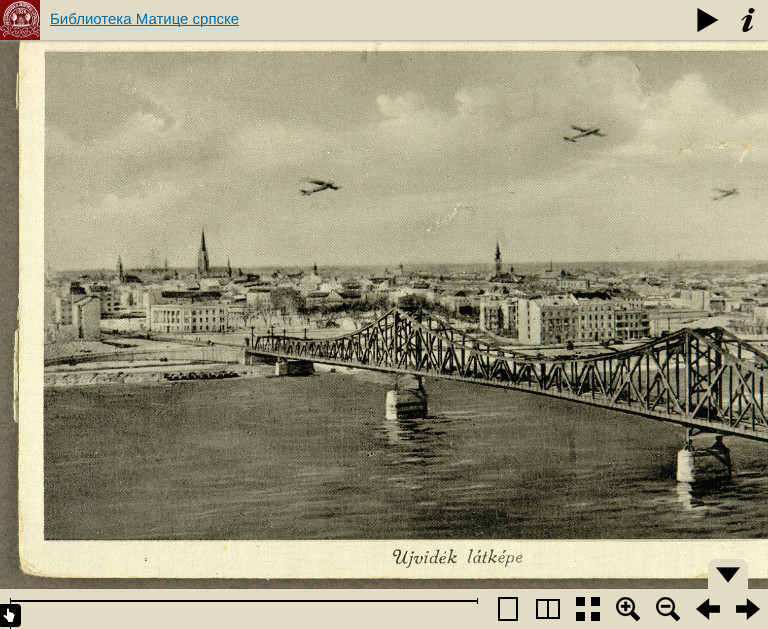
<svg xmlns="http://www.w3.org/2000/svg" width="768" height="629">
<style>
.a{font:15px Liberation Sans;fill:#036daa}
</style>
<rect width="100%" height="100%" fill="#fff"/>
<image href="4.png" x="0" y="40" width="768" height="549"/>
<path fill="#999" filter="blur(1.5px)" d="M0 1h768v40H0z"/>
<path fill="#e2dcc5" d="M40 0h728v40H40z"/>
<image href="1.png" x="0" y="0" width="40" height="40"/>
<path fill="#036daa" d="M50 25h189v1H50z"/>
<image href="2.png" x="697" y="8" width="22" height="24"/>
<image href="3.png" x="741" y="8" width="14" height="24"/>
<path fill="#333" filter="blur(1px)" d="M1 590h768v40H1z"/>
<path fill="#e2dcc5" d="M0 589h768v40H0z"/>
<path fill="#e2dcc5" d="M716 559h24c4.5 0 8 3.5 8 8v22h-40v-22c0-4.5 3.5-8 8-8z"/>
<image href="5.png" x="716" y="567" width="24" height="16"/>
<path fill="#000" d="M10 600h468v2H10z"/>
<path fill="#000" d="M10 598h1v6H10z"/>
<path fill="#000" d="M477 598h1v6H477z"/>
<image href="6.png" x="0" y="604" width="21" height="25"/>
<image href="7.png" x="498" y="597" width="20" height="24"/>
<image href="8.png" x="536" y="599" width="24" height="20"/>
<image href="9.png" x="576" y="597" width="24" height="24"/>
<image href="10.png" x="616" y="597" width="24" height="24"/>
<image href="11.png" x="656" y="597" width="24" height="24"/>
<image href="12.png" x="696" y="598" width="24" height="22"/>
<image href="13.png" x="736" y="598" width="24" height="22"/>
<text class="a" x="50" y="24">Библиотека Матице српске</text>
</svg>
